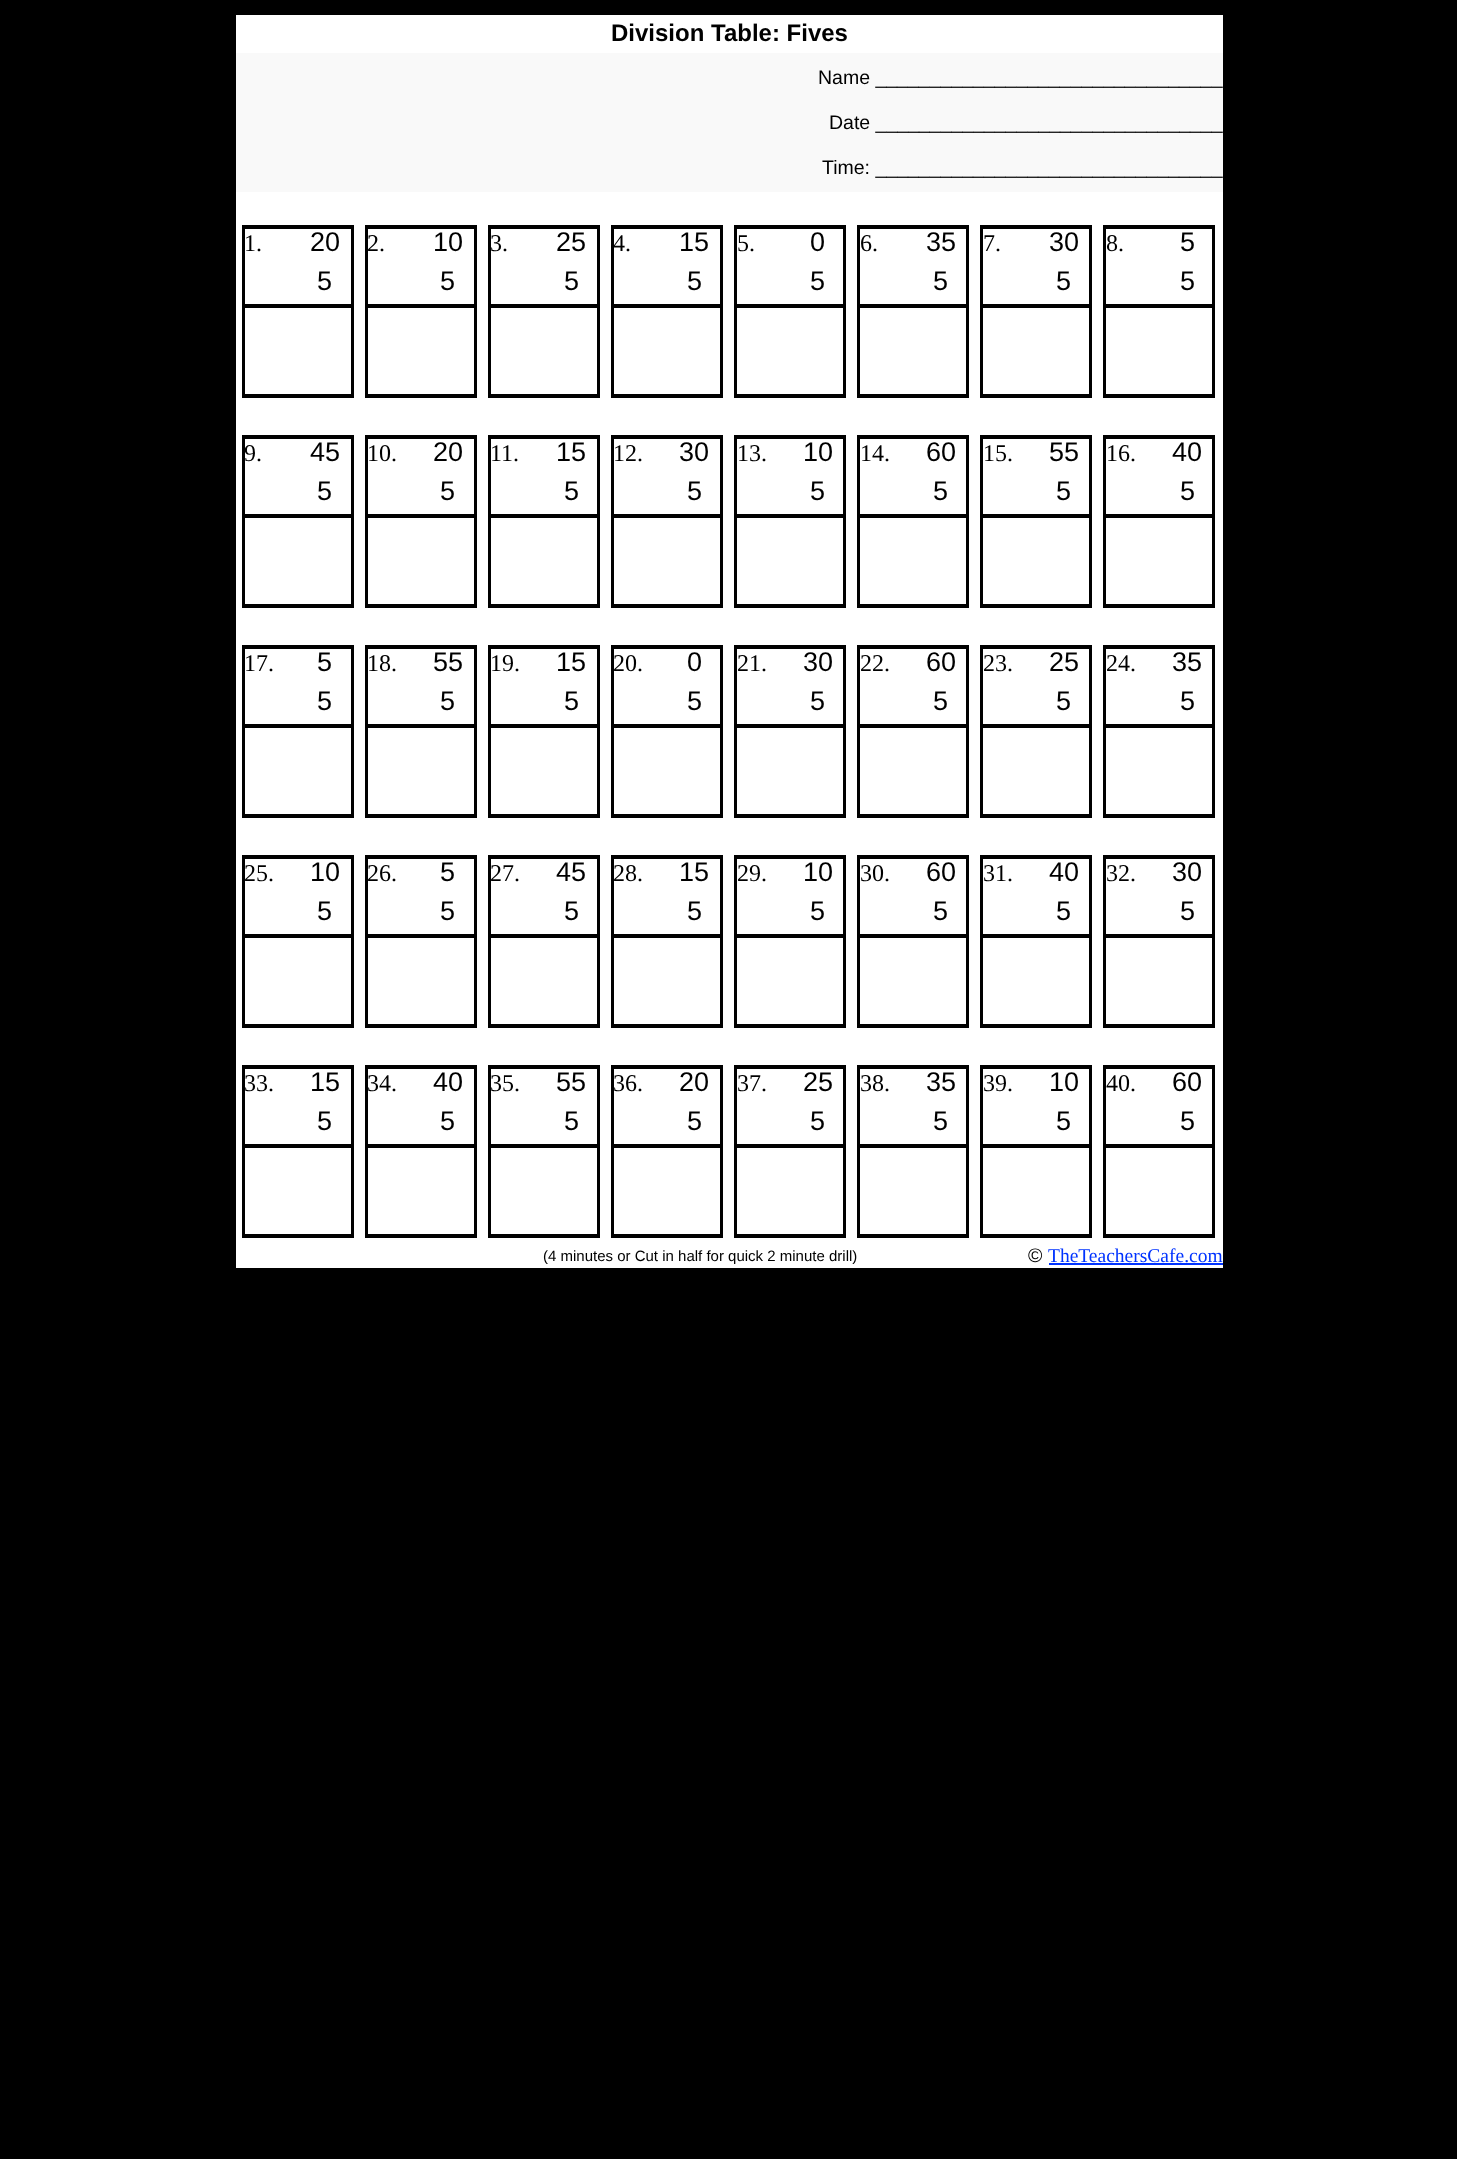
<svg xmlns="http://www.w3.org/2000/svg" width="1457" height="2159">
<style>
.a{font:bold 24px Liberation Sans;fill:#000}
.b{font:19.5px Liberation Sans;fill:#000}
.c{font:24px Liberation Serif;fill:#000}
.d{font:27px Liberation Sans;fill:#000}
.e{font:15px Liberation Sans;fill:#000}
.f{font:19.5px Liberation Serif;fill:#03f}
</style>
<rect width="100%" height="100%" fill="#000"/>
<path fill="#fff" d="M236 15h987v1253H236z"/>
<path fill="#f9f9f9" d="M236 53h987v139H236z"/>
<path fill="none" stroke="#000" stroke-width="2" d="M243 226h110v171H243z"/>
<path fill="none" stroke="#000" stroke-width="2" d="M244 228h108v77H244z"/>
<path fill="none" stroke="#000" stroke-width="2" d="M244 307h108v88H244z"/>
<path fill="none" stroke="#000" stroke-width="2" d="M366 226h110v171H366z"/>
<path fill="none" stroke="#000" stroke-width="2" d="M367 228h108v77H367z"/>
<path fill="none" stroke="#000" stroke-width="2" d="M367 307h108v88H367z"/>
<path fill="none" stroke="#000" stroke-width="2" d="M489 226h110v171H489z"/>
<path fill="none" stroke="#000" stroke-width="2" d="M490 228h108v77H490z"/>
<path fill="none" stroke="#000" stroke-width="2" d="M490 307h108v88H490z"/>
<path fill="none" stroke="#000" stroke-width="2" d="M612 226h110v171H612z"/>
<path fill="none" stroke="#000" stroke-width="2" d="M613 228h108v77H613z"/>
<path fill="none" stroke="#000" stroke-width="2" d="M613 307h108v88H613z"/>
<path fill="none" stroke="#000" stroke-width="2" d="M735 226h110v171H735z"/>
<path fill="none" stroke="#000" stroke-width="2" d="M736 228h108v77H736z"/>
<path fill="none" stroke="#000" stroke-width="2" d="M736 307h108v88H736z"/>
<path fill="none" stroke="#000" stroke-width="2" d="M858 226h110v171H858z"/>
<path fill="none" stroke="#000" stroke-width="2" d="M859 228h108v77H859z"/>
<path fill="none" stroke="#000" stroke-width="2" d="M859 307h108v88H859z"/>
<path fill="none" stroke="#000" stroke-width="2" d="M981 226h110v171H981z"/>
<path fill="none" stroke="#000" stroke-width="2" d="M982 228h108v77H982z"/>
<path fill="none" stroke="#000" stroke-width="2" d="M982 307h108v88H982z"/>
<path fill="none" stroke="#000" stroke-width="2" d="M1104 226h110v171H1104z"/>
<path fill="none" stroke="#000" stroke-width="2" d="M1105 228h108v77H1105z"/>
<path fill="none" stroke="#000" stroke-width="2" d="M1105 307h108v88H1105z"/>
<path fill="none" stroke="#000" stroke-width="2" d="M243 436h110v171H243z"/>
<path fill="none" stroke="#000" stroke-width="2" d="M244 438h108v77H244z"/>
<path fill="none" stroke="#000" stroke-width="2" d="M244 517h108v88H244z"/>
<path fill="none" stroke="#000" stroke-width="2" d="M366 436h110v171H366z"/>
<path fill="none" stroke="#000" stroke-width="2" d="M367 438h108v77H367z"/>
<path fill="none" stroke="#000" stroke-width="2" d="M367 517h108v88H367z"/>
<path fill="none" stroke="#000" stroke-width="2" d="M489 436h110v171H489z"/>
<path fill="none" stroke="#000" stroke-width="2" d="M490 438h108v77H490z"/>
<path fill="none" stroke="#000" stroke-width="2" d="M490 517h108v88H490z"/>
<path fill="none" stroke="#000" stroke-width="2" d="M612 436h110v171H612z"/>
<path fill="none" stroke="#000" stroke-width="2" d="M613 438h108v77H613z"/>
<path fill="none" stroke="#000" stroke-width="2" d="M613 517h108v88H613z"/>
<path fill="none" stroke="#000" stroke-width="2" d="M735 436h110v171H735z"/>
<path fill="none" stroke="#000" stroke-width="2" d="M736 438h108v77H736z"/>
<path fill="none" stroke="#000" stroke-width="2" d="M736 517h108v88H736z"/>
<path fill="none" stroke="#000" stroke-width="2" d="M858 436h110v171H858z"/>
<path fill="none" stroke="#000" stroke-width="2" d="M859 438h108v77H859z"/>
<path fill="none" stroke="#000" stroke-width="2" d="M859 517h108v88H859z"/>
<path fill="none" stroke="#000" stroke-width="2" d="M981 436h110v171H981z"/>
<path fill="none" stroke="#000" stroke-width="2" d="M982 438h108v77H982z"/>
<path fill="none" stroke="#000" stroke-width="2" d="M982 517h108v88H982z"/>
<path fill="none" stroke="#000" stroke-width="2" d="M1104 436h110v171H1104z"/>
<path fill="none" stroke="#000" stroke-width="2" d="M1105 438h108v77H1105z"/>
<path fill="none" stroke="#000" stroke-width="2" d="M1105 517h108v88H1105z"/>
<path fill="none" stroke="#000" stroke-width="2" d="M243 646h110v171H243z"/>
<path fill="none" stroke="#000" stroke-width="2" d="M244 648h108v77H244z"/>
<path fill="none" stroke="#000" stroke-width="2" d="M244 727h108v88H244z"/>
<path fill="none" stroke="#000" stroke-width="2" d="M366 646h110v171H366z"/>
<path fill="none" stroke="#000" stroke-width="2" d="M367 648h108v77H367z"/>
<path fill="none" stroke="#000" stroke-width="2" d="M367 727h108v88H367z"/>
<path fill="none" stroke="#000" stroke-width="2" d="M489 646h110v171H489z"/>
<path fill="none" stroke="#000" stroke-width="2" d="M490 648h108v77H490z"/>
<path fill="none" stroke="#000" stroke-width="2" d="M490 727h108v88H490z"/>
<path fill="none" stroke="#000" stroke-width="2" d="M612 646h110v171H612z"/>
<path fill="none" stroke="#000" stroke-width="2" d="M613 648h108v77H613z"/>
<path fill="none" stroke="#000" stroke-width="2" d="M613 727h108v88H613z"/>
<path fill="none" stroke="#000" stroke-width="2" d="M735 646h110v171H735z"/>
<path fill="none" stroke="#000" stroke-width="2" d="M736 648h108v77H736z"/>
<path fill="none" stroke="#000" stroke-width="2" d="M736 727h108v88H736z"/>
<path fill="none" stroke="#000" stroke-width="2" d="M858 646h110v171H858z"/>
<path fill="none" stroke="#000" stroke-width="2" d="M859 648h108v77H859z"/>
<path fill="none" stroke="#000" stroke-width="2" d="M859 727h108v88H859z"/>
<path fill="none" stroke="#000" stroke-width="2" d="M981 646h110v171H981z"/>
<path fill="none" stroke="#000" stroke-width="2" d="M982 648h108v77H982z"/>
<path fill="none" stroke="#000" stroke-width="2" d="M982 727h108v88H982z"/>
<path fill="none" stroke="#000" stroke-width="2" d="M1104 646h110v171H1104z"/>
<path fill="none" stroke="#000" stroke-width="2" d="M1105 648h108v77H1105z"/>
<path fill="none" stroke="#000" stroke-width="2" d="M1105 727h108v88H1105z"/>
<path fill="none" stroke="#000" stroke-width="2" d="M243 856h110v171H243z"/>
<path fill="none" stroke="#000" stroke-width="2" d="M244 858h108v77H244z"/>
<path fill="none" stroke="#000" stroke-width="2" d="M244 937h108v88H244z"/>
<path fill="none" stroke="#000" stroke-width="2" d="M366 856h110v171H366z"/>
<path fill="none" stroke="#000" stroke-width="2" d="M367 858h108v77H367z"/>
<path fill="none" stroke="#000" stroke-width="2" d="M367 937h108v88H367z"/>
<path fill="none" stroke="#000" stroke-width="2" d="M489 856h110v171H489z"/>
<path fill="none" stroke="#000" stroke-width="2" d="M490 858h108v77H490z"/>
<path fill="none" stroke="#000" stroke-width="2" d="M490 937h108v88H490z"/>
<path fill="none" stroke="#000" stroke-width="2" d="M612 856h110v171H612z"/>
<path fill="none" stroke="#000" stroke-width="2" d="M613 858h108v77H613z"/>
<path fill="none" stroke="#000" stroke-width="2" d="M613 937h108v88H613z"/>
<path fill="none" stroke="#000" stroke-width="2" d="M735 856h110v171H735z"/>
<path fill="none" stroke="#000" stroke-width="2" d="M736 858h108v77H736z"/>
<path fill="none" stroke="#000" stroke-width="2" d="M736 937h108v88H736z"/>
<path fill="none" stroke="#000" stroke-width="2" d="M858 856h110v171H858z"/>
<path fill="none" stroke="#000" stroke-width="2" d="M859 858h108v77H859z"/>
<path fill="none" stroke="#000" stroke-width="2" d="M859 937h108v88H859z"/>
<path fill="none" stroke="#000" stroke-width="2" d="M981 856h110v171H981z"/>
<path fill="none" stroke="#000" stroke-width="2" d="M982 858h108v77H982z"/>
<path fill="none" stroke="#000" stroke-width="2" d="M982 937h108v88H982z"/>
<path fill="none" stroke="#000" stroke-width="2" d="M1104 856h110v171H1104z"/>
<path fill="none" stroke="#000" stroke-width="2" d="M1105 858h108v77H1105z"/>
<path fill="none" stroke="#000" stroke-width="2" d="M1105 937h108v88H1105z"/>
<path fill="none" stroke="#000" stroke-width="2" d="M243 1066h110v171H243z"/>
<path fill="none" stroke="#000" stroke-width="2" d="M244 1068h108v77H244z"/>
<path fill="none" stroke="#000" stroke-width="2" d="M244 1147h108v88H244z"/>
<path fill="none" stroke="#000" stroke-width="2" d="M366 1066h110v171H366z"/>
<path fill="none" stroke="#000" stroke-width="2" d="M367 1068h108v77H367z"/>
<path fill="none" stroke="#000" stroke-width="2" d="M367 1147h108v88H367z"/>
<path fill="none" stroke="#000" stroke-width="2" d="M489 1066h110v171H489z"/>
<path fill="none" stroke="#000" stroke-width="2" d="M490 1068h108v77H490z"/>
<path fill="none" stroke="#000" stroke-width="2" d="M490 1147h108v88H490z"/>
<path fill="none" stroke="#000" stroke-width="2" d="M612 1066h110v171H612z"/>
<path fill="none" stroke="#000" stroke-width="2" d="M613 1068h108v77H613z"/>
<path fill="none" stroke="#000" stroke-width="2" d="M613 1147h108v88H613z"/>
<path fill="none" stroke="#000" stroke-width="2" d="M735 1066h110v171H735z"/>
<path fill="none" stroke="#000" stroke-width="2" d="M736 1068h108v77H736z"/>
<path fill="none" stroke="#000" stroke-width="2" d="M736 1147h108v88H736z"/>
<path fill="none" stroke="#000" stroke-width="2" d="M858 1066h110v171H858z"/>
<path fill="none" stroke="#000" stroke-width="2" d="M859 1068h108v77H859z"/>
<path fill="none" stroke="#000" stroke-width="2" d="M859 1147h108v88H859z"/>
<path fill="none" stroke="#000" stroke-width="2" d="M981 1066h110v171H981z"/>
<path fill="none" stroke="#000" stroke-width="2" d="M982 1068h108v77H982z"/>
<path fill="none" stroke="#000" stroke-width="2" d="M982 1147h108v88H982z"/>
<path fill="none" stroke="#000" stroke-width="2" d="M1104 1066h110v171H1104z"/>
<path fill="none" stroke="#000" stroke-width="2" d="M1105 1068h108v77H1105z"/>
<path fill="none" stroke="#000" stroke-width="2" d="M1105 1147h108v88H1105z"/>
<path fill="#03f" d="M1049 1263h174v2H1049z"/>
<text class="a" x="611" y="41">Division Table: Fives</text>
<text class="b" x="818" y="84">Name ________________________________</text>
<text class="b" x="829" y="129">Date ________________________________</text>
<text class="b" x="822" y="174">Time: ________________________________</text>
<text class="c" x="244" y="251">1.</text>
<text class="d" x="310" y="251">20</text>
<text class="d" x="317" y="290">5</text>
<text class="c" x="367" y="251">2.</text>
<text class="d" x="433" y="251">10</text>
<text class="d" x="440" y="290">5</text>
<text class="c" x="490" y="251">3.</text>
<text class="d" x="556" y="251">25</text>
<text class="d" x="564" y="290">5</text>
<text class="c" x="613" y="251">4.</text>
<text class="d" x="679" y="251">15</text>
<text class="d" x="687" y="290">5</text>
<text class="c" x="737" y="251">5.</text>
<text class="d" x="810" y="251">0</text>
<text class="d" x="810" y="290">5</text>
<text class="c" x="860" y="251">6.</text>
<text class="d" x="926" y="251">35</text>
<text class="d" x="933" y="290">5</text>
<text class="c" x="983" y="251">7.</text>
<text class="d" x="1049" y="251">30</text>
<text class="d" x="1056" y="290">5</text>
<text class="c" x="1106" y="251">8.</text>
<text class="d" x="1180" y="251">5</text>
<text class="d" x="1180" y="290">5</text>
<text class="c" x="244" y="461">9.</text>
<text class="d" x="310" y="461">45</text>
<text class="d" x="317" y="500">5</text>
<text class="c" x="367" y="461">10.</text>
<text class="d" x="433" y="461">20</text>
<text class="d" x="440" y="500">5</text>
<text class="c" x="490" y="461">11.</text>
<text class="d" x="556" y="461">15</text>
<text class="d" x="564" y="500">5</text>
<text class="c" x="613" y="461">12.</text>
<text class="d" x="679" y="461">30</text>
<text class="d" x="687" y="500">5</text>
<text class="c" x="737" y="461">13.</text>
<text class="d" x="803" y="461">10</text>
<text class="d" x="810" y="500">5</text>
<text class="c" x="860" y="461">14.</text>
<text class="d" x="926" y="461">60</text>
<text class="d" x="933" y="500">5</text>
<text class="c" x="983" y="461">15.</text>
<text class="d" x="1049" y="461">55</text>
<text class="d" x="1056" y="500">5</text>
<text class="c" x="1106" y="461">16.</text>
<text class="d" x="1172" y="461">40</text>
<text class="d" x="1180" y="500">5</text>
<text class="c" x="244" y="671">17.</text>
<text class="d" x="317" y="671">5</text>
<text class="d" x="317" y="710">5</text>
<text class="c" x="367" y="671">18.</text>
<text class="d" x="433" y="671">55</text>
<text class="d" x="440" y="710">5</text>
<text class="c" x="490" y="671">19.</text>
<text class="d" x="556" y="671">15</text>
<text class="d" x="564" y="710">5</text>
<text class="c" x="613" y="671">20.</text>
<text class="d" x="687" y="671">0</text>
<text class="d" x="687" y="710">5</text>
<text class="c" x="737" y="671">21.</text>
<text class="d" x="803" y="671">30</text>
<text class="d" x="810" y="710">5</text>
<text class="c" x="860" y="671">22.</text>
<text class="d" x="926" y="671">60</text>
<text class="d" x="933" y="710">5</text>
<text class="c" x="983" y="671">23.</text>
<text class="d" x="1049" y="671">25</text>
<text class="d" x="1056" y="710">5</text>
<text class="c" x="1106" y="671">24.</text>
<text class="d" x="1172" y="671">35</text>
<text class="d" x="1180" y="710">5</text>
<text class="c" x="244" y="881">25.</text>
<text class="d" x="310" y="881">10</text>
<text class="d" x="317" y="920">5</text>
<text class="c" x="367" y="881">26.</text>
<text class="d" x="440" y="881">5</text>
<text class="d" x="440" y="920">5</text>
<text class="c" x="490" y="881">27.</text>
<text class="d" x="556" y="881">45</text>
<text class="d" x="564" y="920">5</text>
<text class="c" x="613" y="881">28.</text>
<text class="d" x="679" y="881">15</text>
<text class="d" x="687" y="920">5</text>
<text class="c" x="737" y="881">29.</text>
<text class="d" x="803" y="881">10</text>
<text class="d" x="810" y="920">5</text>
<text class="c" x="860" y="881">30.</text>
<text class="d" x="926" y="881">60</text>
<text class="d" x="933" y="920">5</text>
<text class="c" x="983" y="881">31.</text>
<text class="d" x="1049" y="881">40</text>
<text class="d" x="1056" y="920">5</text>
<text class="c" x="1106" y="881">32.</text>
<text class="d" x="1172" y="881">30</text>
<text class="d" x="1180" y="920">5</text>
<text class="c" x="244" y="1091">33.</text>
<text class="d" x="310" y="1091">15</text>
<text class="d" x="317" y="1130">5</text>
<text class="c" x="367" y="1091">34.</text>
<text class="d" x="433" y="1091">40</text>
<text class="d" x="440" y="1130">5</text>
<text class="c" x="490" y="1091">35.</text>
<text class="d" x="556" y="1091">55</text>
<text class="d" x="564" y="1130">5</text>
<text class="c" x="613" y="1091">36.</text>
<text class="d" x="679" y="1091">20</text>
<text class="d" x="687" y="1130">5</text>
<text class="c" x="737" y="1091">37.</text>
<text class="d" x="803" y="1091">25</text>
<text class="d" x="810" y="1130">5</text>
<text class="c" x="860" y="1091">38.</text>
<text class="d" x="926" y="1091">35</text>
<text class="d" x="933" y="1130">5</text>
<text class="c" x="983" y="1091">39.</text>
<text class="d" x="1049" y="1091">10</text>
<text class="d" x="1056" y="1130">5</text>
<text class="c" x="1106" y="1091">40.</text>
<text class="d" x="1172" y="1091">60</text>
<text class="d" x="1180" y="1130">5</text>
<text class="e" x="543" y="1261">(4 minutes or Cut in half for quick 2 minute drill)</text>
<text class="b" x="1028" y="1262">©</text>
<text class="f" x="1048" y="1262">TheTeachersCafe.com</text>
</svg>
